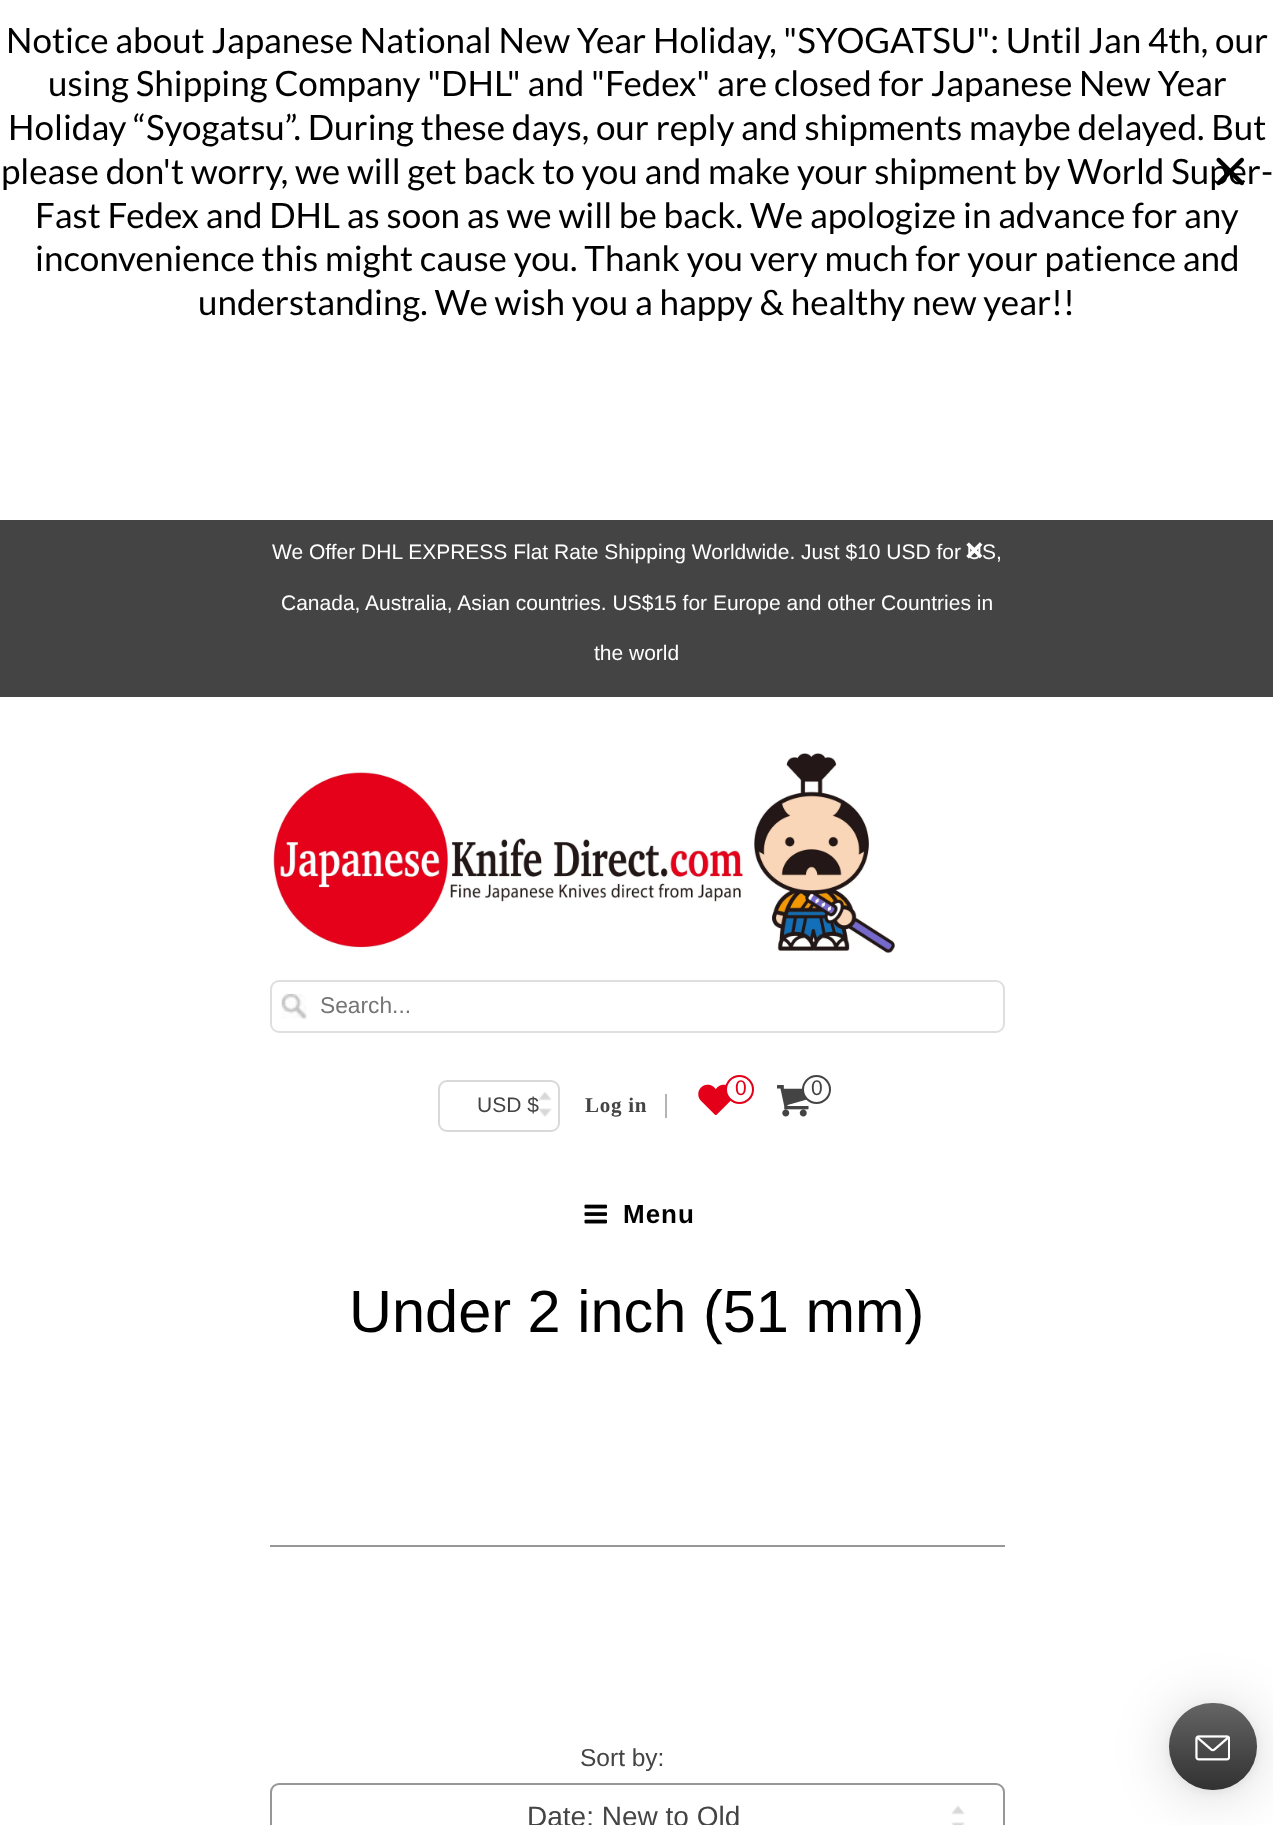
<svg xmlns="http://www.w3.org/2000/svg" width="1273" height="1825">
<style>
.a{font:35px Lato;fill:#000}
.b{font:21px Liberation Sans;fill:#fff}
.c{font:bold 32px Liberation Sans;fill:#fff}
.d{font:22.75px Liberation Sans;fill:#757575}
.e{font:21px Liberation Sans;fill:#e40019}
.f{font:21px Liberation Sans;fill:#444}
.g{font:bold 21px Liberation Serif;letter-spacing:0.75px;fill:#444}
.h{font:bold 26px Liberation Sans;letter-spacing:1px;fill:#000}
.i{font:59.5px Liberation Sans;fill:#000}
.j{font:24.5px Liberation Sans;fill:#444}
.k{font:28px Liberation Sans;fill:#444}
</style>
<defs>
<linearGradient id="g1" gradientUnits="userSpaceOnUse" x1="1213" y1="1703" x2="1213" y2="1790"><stop offset="0" stop-color="#fff" stop-opacity="0.2"/><stop offset="1" stop-color="#000" stop-opacity="0.2"/></linearGradient>
</defs>
<rect width="100%" height="100%" fill="#fff"/>
<path fill="#444" d="M0 520h1273v177H0z"/>
<image href="2.png" x="273" y="753" width="622" height="200"/>
<image href="3.png" x="281" y="994" width="26" height="25"/>
<rect fill="none" stroke="#dfdfdf" stroke-width="2" x="271" y="981" width="733" height="51" rx="8"/>
<image href="4.png" x="698" y="1084" width="33" height="31"/>
<circle fill="#fff" stroke="#e40019" stroke-width="2" cx="739.5" cy="1089.5" r="13.5"/>
<image href="5.png" x="777" y="1085" width="32" height="32"/>
<circle fill="#fff" stroke="#444" stroke-width="2" cx="816.5" cy="1089.5" r="13.5"/>
<image href="6.png" x="538" y="1091" width="14" height="26"/>
<rect fill="none" stroke="#d9d9d9" stroke-width="2" x="439" y="1081" width="120" height="50" rx="8"/>
<path fill="#b4b4b4" d="M665 1094h2v24H665z"/>
<image href="7.png" x="584" y="1204" width="23" height="20"/>
<path fill="#979797" d="M270 1545h735v2H270z"/>
<image href="8.png" x="951" y="1805" width="14" height="20"/>
<rect fill="none" stroke="#979797" stroke-width="2" x="271" y="1784" width="733" height="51" rx="8"/>
<rect fill="#00000029" filter="blur(28px)" x="1169" y="1706" width="88" height="88" rx="44"/>
<rect fill="#0000000f" filter="blur(5px)" x="1169" y="1705" width="88" height="87" rx="43.5"/>
<rect fill="#3e3e3e" x="1169" y="1703" width="88" height="87" rx="43.5"/>
<rect fill="url(#g1)" x="1169" y="1703" width="88" height="87" rx="43.5"/>
<image href="9.png" x="1195" y="1735" width="35" height="26"/>
<text class="a" x="6" y="53">Notice about Japanese National New Year Holiday, "SYOGATSU": Until Jan 4th, our</text>
<text class="a" x="48" y="96">using Shipping Company "DHL" and "Fedex" are closed for Japanese New Year</text>
<text class="a" x="8" y="140">Holiday “Syogatsu”. During these days, our reply and shipments maybe delayed. But</text>
<text class="a" x="1" y="184">please don't worry, we will get back to you and make your shipment by World Super-</text>
<text class="a" x="35" y="228">Fast Fedex and DHL as soon as we will be back. We apologize in advance for any</text>
<text class="a" x="35" y="271">inconvenience this might cause you. Thank you very much for your patience and</text>
<text class="a" x="198" y="315">understanding. We wish you a happy &amp; healthy new year!!</text>
<image href="1.png" x="1216" y="157" width="28" height="29"/>
<text class="b" x="272" y="559">We Offer DHL EXPRESS Flat Rate Shipping Worldwide. Just $10 USD for US,</text>
<text class="c" x="965" y="561">×</text>
<text class="b" x="281" y="610">Canada, Australia, Asian countries. US$15 for Europe and other Countries in</text>
<text class="b" x="594" y="660">the world</text>
<text class="d" x="320" y="1013">Search...</text>
<text class="e" x="735" y="1095">0</text>
<text class="f" x="811" y="1095">0</text>
<text class="f" x="477" y="1112">USD $</text>
<text class="g" x="585" y="1112">Log in</text>
<text class="h" x="623" y="1223">Menu</text>
<text class="i" x="349" y="1332">Under 2 inch (51 mm)</text>
<text class="j" x="580" y="1766">Sort by:</text>
<text class="k" x="527" y="1826">Date: New to Old</text>
</svg>
